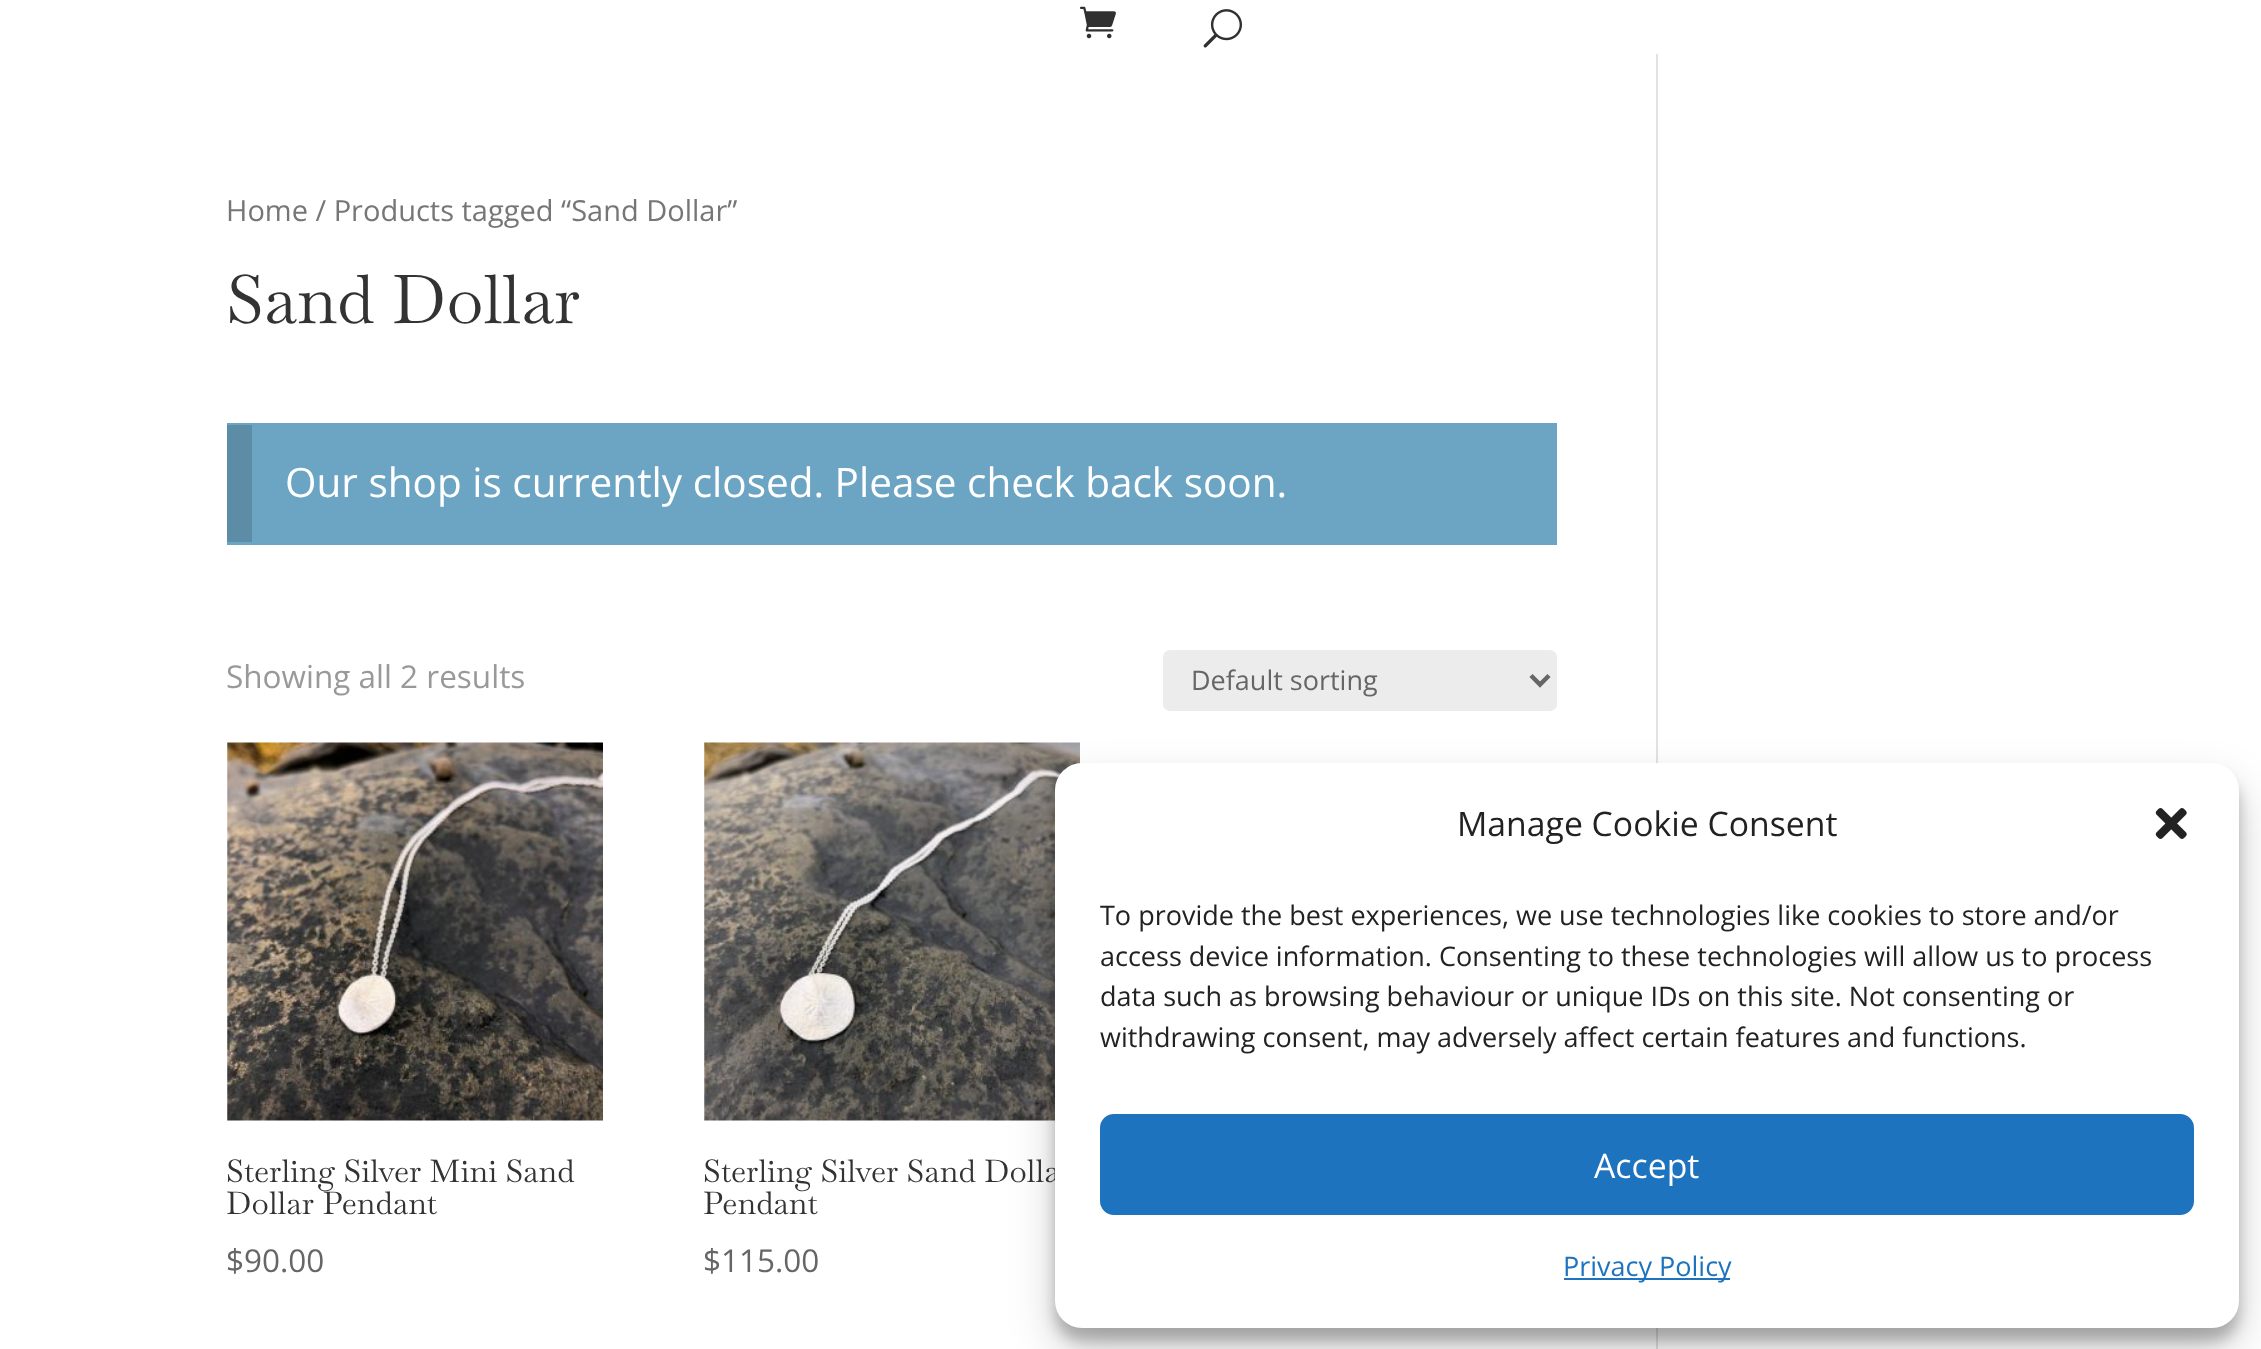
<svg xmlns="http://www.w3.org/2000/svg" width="2261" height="1349">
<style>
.a{font:29px Open Sans;fill:#767676}
.b{font:67.5px Baskervville;fill:#333}
.c{font:40.5px Open Sans;fill:#fff}
.d{font:31.5px Open Sans;fill:#999}
.e{font:27px Open Sans;fill:#666}
.f{font:31.5px Baskervville;fill:#333}
.g{font:31.5px Open Sans;fill:#666}
.h{font:33.75px Open Sans;fill:#222}
.i{font:27px Open Sans;fill:#222}
.j{font:33.75px Open Sans;fill:#fff}
.k{font:27px Open Sans;fill:#1e73be}
</style>
<rect width="100%" height="100%" fill="#fff"/>
<image href="1.png" x="1080" y="6" width="36" height="33"/>
<image href="2.png" x="1203" y="9" width="39" height="39"/>
<path fill="#6ca5c3" d="M227 423h1330v122H227z"/>
<path fill="#5c8ca6" d="M227 425h25v117H227z"/>
<rect fill="#ececec" x="1163" y="650" width="394" height="61" rx="7"/>
<path fill="none" stroke="#666" stroke-width="4.5" d="M1531 675.5l9 9l9-9"/>
<image href="3.png" x="227" y="742" width="376" height="379"/>
<image href="4.png" x="704" y="742" width="376" height="379"/>
<path fill="#e2e2e2" d="M1656 54h2v1295H1656z"/>
<rect fill="#0000003b" filter="blur(7px)" x="1055" y="776" width="1184" height="565" rx="27"/>
<rect fill="#00000030" filter="blur(22.5px)" x="1055" y="785" width="1184" height="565" rx="27"/>
<text class="a" x="226" y="221">Home / Products tagged “Sand Dollar”</text>
<text class="b" x="226" y="323">Sand Dollar</text>
<text class="c" x="285" y="497">Our shop is currently closed. Please check back soon.</text>
<text class="d" x="226" y="688">Showing all 2 results</text>
<text class="e" x="1191" y="690">Default sorting</text>
<text class="f" x="226" y="1182">Sterling Silver Mini Sand</text>
<text class="f" x="226" y="1214">Dollar Pendant</text>
<text class="g" x="226" y="1272">$90.00</text>
<text class="f" x="703" y="1182">Sterling Silver Sand Dolla</text>
<text class="f" x="703" y="1214">Pendant</text>
<text class="g" x="703" y="1272">$115.00</text>
<rect fill="#fff" x="1055" y="763" width="1184" height="565" rx="27"/>
<text class="h" x="1457" y="836">Manage Cookie Consent</text>
<image href="5.png" x="2155" y="808" width="32" height="31"/>
<text class="i" x="1100" y="925">To provide the best experiences, we use technologies like cookies to store and/or</text>
<text class="i" x="1100" y="966">access device information. Consenting to these technologies will allow us to process</text>
<text class="i" x="1100" y="1006">data such as browsing behaviour or unique IDs on this site. Not consenting or</text>
<text class="i" x="1100" y="1047">withdrawing consent, may adversely affect certain features and functions.</text>
<rect fill="#1e73be" stroke="#1e73be" stroke-width="2" x="1101" y="1115" width="1092" height="99" rx="13"/>
<text class="j" x="1594" y="1178">Accept</text>
<path fill="#1e73be" d="M1564 1278h166v2H1564z"/>
<text class="k" x="1563" y="1276">Privacy Policy</text>
</svg>
